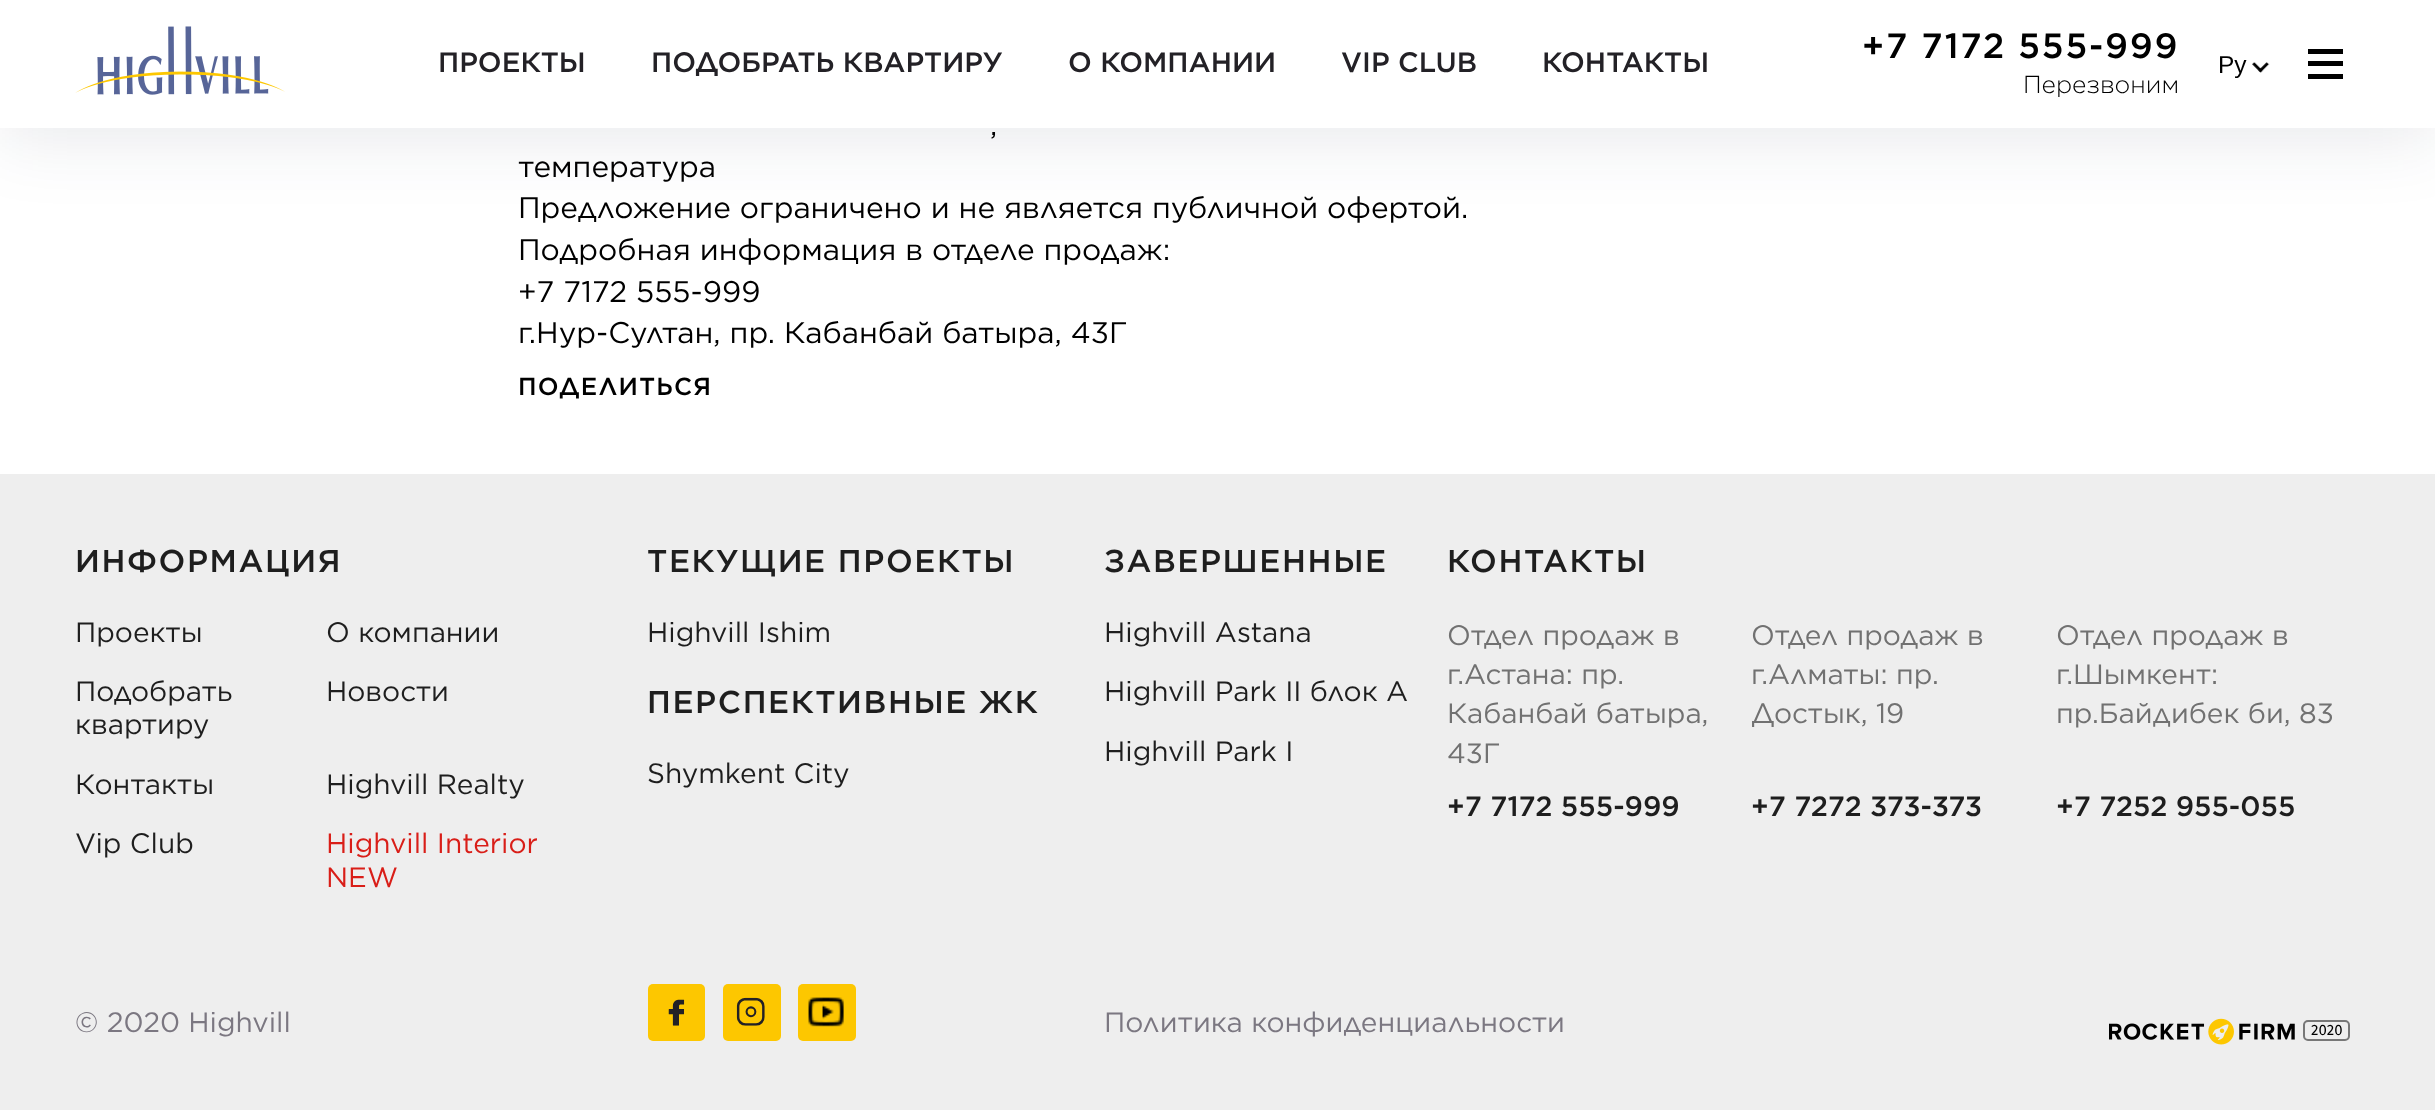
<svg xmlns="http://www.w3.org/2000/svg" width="2435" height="1110">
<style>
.a{font:500 28px Gotham;fill:#232126}
.b{font:500 35px Gotham;letter-spacing:1.75px;fill:#000}
.c{font:300 24.5px Gotham;fill:#000}
.d{font:24.5px Liberation Sans;fill:#000}
.e{font:29.75px Gotham;fill:#000}
.f{font:500 24.5px Gotham;letter-spacing:1.25px;fill:#000}
.g{font:500 31.5px Gotham;letter-spacing:1.6px;fill:#1e1e1e}
.h{font:28px Gotham;fill:#1e1e1e}
.i{font:28px Gotham;fill:#d91e18}
.j{font:28px Gotham;fill:#717171}
.k{font:500 28px Gotham;fill:#1e1e1e}
.l{font:28px Gotham;fill:#7b7781}
.m{font:15px Fira Sans;fill:#000}
</style>
<rect width="100%" height="100%" fill="#fff"/>
<path fill="#181e361a" filter="blur(35px)" d="M0 9h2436v128H0z"/>
<path fill="#fff" d="M0 0h2435v128H0z"/>
<image href="1.png" x="75" y="26" width="210" height="69"/>
<image href="2.png" x="2252" y="62" width="18" height="11"/>
<path fill="#000" d="M2308 61h35v5H2308z"/>
<path fill="#000" d="M2308 49h35v5H2308z"/>
<path fill="#000" d="M2308 74h35v5H2308z"/>
<path fill="#eee" d="M0 474h2435v636H0z"/>
<rect fill="#fdc700" x="648" y="984" width="57" height="57" rx="5"/>
<image href="3.png" x="668" y="999" width="17" height="27"/>
<rect fill="#fdc700" x="723" y="984" width="58" height="57" rx="5"/>
<image href="4.png" x="736" y="997" width="29" height="29"/>
<rect fill="#fdc700" x="798" y="984" width="58" height="57" rx="5"/>
<image href="5.png" x="808" y="997" width="36" height="30"/>
<image href="6.png" x="2109" y="1018" width="186" height="27"/>
<rect fill="none" stroke="#777" stroke-width="2" x="2304" y="1021" width="45" height="19" rx="4"/>
<text class="a" x="438" y="72">ПРОЕКТЫ</text>
<text class="a" x="651" y="72">ПОДОБРАТЬ КВАРТИРУ</text>
<text class="a" x="1068" y="72">О КОМПАНИИ</text>
<text class="a" x="1341" y="72">VIP CLUB</text>
<text class="a" x="1542" y="72">КОНТАКТЫ</text>
<text class="b" x="1862" y="58">+7 7172 555-999</text>
<text class="c" x="2023" y="93">Перезвоним</text>
<text class="d" x="2218" y="73">Ру</text>
<text class="e" x="990" y="135">,</text>
<text class="e" x="518" y="177">температура</text>
<text class="e" x="518" y="218">Предложение ограничено и не является публичной офертой.</text>
<text class="e" x="518" y="260">Подробная информация в отделе продаж:</text>
<text class="e" x="518" y="302">+7 7172 555-999</text>
<text class="e" x="518" y="343">г.Нур-Султан, пр. Кабанбай батыра, 43Г</text>
<text class="f" x="518" y="395">ПОДЕЛИТЬСЯ</text>
<text class="g" x="75" y="572">ИНФОРМАЦИЯ</text>
<text class="h" x="75" y="642">Проекты</text>
<text class="h" x="326" y="642">О компании</text>
<text class="h" x="75" y="701">Подобрать</text>
<text class="h" x="75" y="734">квартиру</text>
<text class="h" x="326" y="701">Новости</text>
<text class="h" x="75" y="794">Контакты</text>
<text class="h" x="326" y="794">Highvill Realty</text>
<text class="h" x="75" y="853">Vip Club</text>
<text class="i" x="326" y="853">Highvill Interior</text>
<text class="i" x="326" y="887">NEW</text>
<text class="g" x="647" y="572">ТЕКУЩИЕ ПРОЕКТЫ</text>
<text class="h" x="647" y="642">Highvill Ishim</text>
<text class="g" x="647" y="713">ПЕРСПЕКТИВНЫЕ ЖК</text>
<text class="h" x="647" y="783">Shymkent City</text>
<text class="g" x="1104" y="572">ЗАВЕРШЕННЫЕ</text>
<text class="h" x="1104" y="642">Highvill Astana</text>
<text class="h" x="1104" y="701">Highvill Park II блок А</text>
<text class="h" x="1104" y="761">Highvill Park I</text>
<text class="g" x="1447" y="572">КОНТАКТЫ</text>
<text class="j" x="1447" y="645">Отдел продаж в</text>
<text class="j" x="1447" y="684">г.Астана: пр.</text>
<text class="j" x="1447" y="723">Кабанбай батыра,</text>
<text class="j" x="1447" y="763">43Г</text>
<text class="k" x="1447" y="816">+7 7172 555-999</text>
<text class="j" x="1751" y="645">Отдел продаж в</text>
<text class="j" x="1751" y="684">г.Алматы: пр.</text>
<text class="j" x="1751" y="723">Достык, 19</text>
<text class="k" x="1751" y="816">+7 7272 373-373</text>
<text class="j" x="2056" y="645">Отдел продаж в</text>
<text class="j" x="2056" y="684">г.Шымкент:</text>
<text class="j" x="2056" y="723">пр.Байдибек би, 83</text>
<text class="k" x="2056" y="816">+7 7252 955-055</text>
<text class="l" x="75" y="1032">© 2020 Highvill</text>
<text class="l" x="1104" y="1032">Политика конфиденциальности</text>
<text class="m" x="2311" y="1035">2020</text>
</svg>
